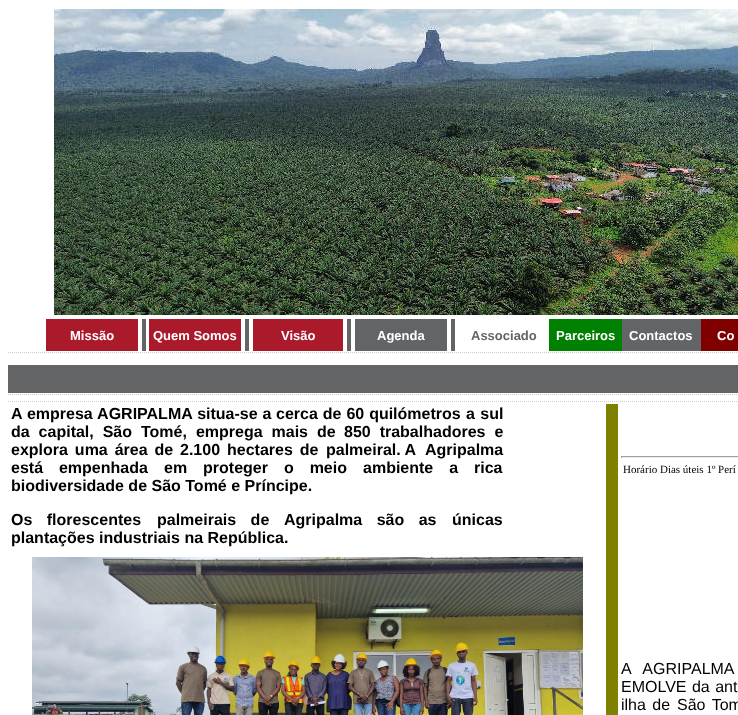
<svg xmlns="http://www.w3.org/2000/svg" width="738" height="715">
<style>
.a{font:bold 13px Liberation Sans;fill:#fff}
.b{font:bold 13px Liberation Sans;fill:#636466}
.c{font:bold 16px Liberation Sans;fill:#000}
.d{font:11px Liberation Serif;fill:#000}
.e{font:16px Liberation Sans;fill:#000}
</style>
<rect width="100%" height="100%" fill="#fff"/>
<image href="1.png" x="54" y="9" width="684" height="306"/>
<path fill="#ab1a2b" d="M46 319h92v32H46z"/>
<path fill="#636466" d="M142 319h4v32H142z"/>
<path fill="#ab1a2b" d="M149 319h92v32H149z"/>
<path fill="#636466" d="M245 319h4v32H245z"/>
<path fill="#ab1a2b" d="M253 319h90v32H253z"/>
<path fill="#636466" d="M347 319h4v32H347z"/>
<path fill="#636466" d="M355 319h92v32H355z"/>
<path fill="#636466" d="M451 319h4v32H451z"/>
<path fill="#008000" d="M549 319h73v32H549z"/>
<path fill="#636466" d="M622 319h79v32H622z"/>
<path fill="#800000" d="M701 319h37v32H701z"/>
<path fill="none" stroke="#ccc" stroke-dasharray="1 1" d="M8 352.5h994"/>
<path fill="#636466" d="M8 365h730v28H8z"/>
<path fill="none" stroke="#ccc" stroke-dasharray="1 1" d="M8 394.5h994"/>
<path fill="none" stroke="#ccc" stroke-dasharray="1 1" d="M8 401.5h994"/>
<image href="2.png" x="32" y="557" width="551" height="158"/>
<path fill="#808000" d="M606 404h12v311H606z"/>
<path fill="#9f9f9f" d="M621 456h117v1H621z"/>
<path fill="#eee" d="M621 457h117v1H621z"/>
<path fill="#9f9f9f" d="M621 456h1v2H621z"/>
<text class="a" x="70" y="340">Missão</text>
<text class="a" x="153" y="340">Quem Somos</text>
<text class="a" x="281" y="340">Visão</text>
<text class="a" x="377" y="340">Agenda</text>
<text class="b" x="471" y="340">Associado</text>
<text class="a" x="556" y="340">Parceiros</text>
<text class="a" x="629" y="340">Contactos</text>
<text class="a" x="717" y="340">Co</text>
<text class="c" x="11" y="419" word-spacing="0.5">A empresa AGRIPALMA situa-se a</text>
<text class="c" x="276" y="419" word-spacing="0.5">cerca de 60 quilómetros</text>
<text class="c" x="466" y="419" word-spacing="1">a sul</text>
<text class="c" x="11" y="437" word-spacing="4.5">da capital, São</text>
<text class="c" x="141" y="437" word-spacing="4.5">Tomé, emprega mais de</text>
<text class="c" x="344" y="437" word-spacing="4.5">850 trabalhadores e</text>
<text class="c" x="11" y="455" word-spacing="2.5">explora uma área de</text>
<text class="c" x="180" y="455" word-spacing="2.5">2.100 hectares de</text>
<text class="c" x="326" y="455">palmeiral. A</text>
<text class="c" x="425" y="455">Agripalma</text>
<text class="c" x="11" y="473" word-spacing="11.5">está empenhada</text>
<text class="c" x="164" y="473" word-spacing="11.5">em proteger o meio</text>
<text class="c" x="363" y="473" word-spacing="11.5">ambiente a rica</text>
<text class="c" x="11" y="491">biodiversidade de São Tomé e Príncipe.</text>
<text class="c" x="11" y="525" word-spacing="10">Os florescentes</text>
<text class="c" x="157" y="525" word-spacing="10">palmeirais de</text>
<text class="c" x="284" y="525" word-spacing="10">Agripalma são as</text>
<text class="c" x="452" y="525">únicas</text>
<text class="c" x="11" y="543">plantações industriais na República.</text>
<text class="d" x="623" y="473">Horário Dias úteis 1º Perí</text>
<text class="e" x="621" y="674" word-spacing="8">A AGRIPALMA</text>
<text class="e" x="621" y="692" word-spacing="1">EMOLVE da ant</text>
<text class="e" x="621" y="710" word-spacing="2">ilha de</text>
<text class="e" x="677" y="710" word-spacing="2">São Tom</text>
</svg>
